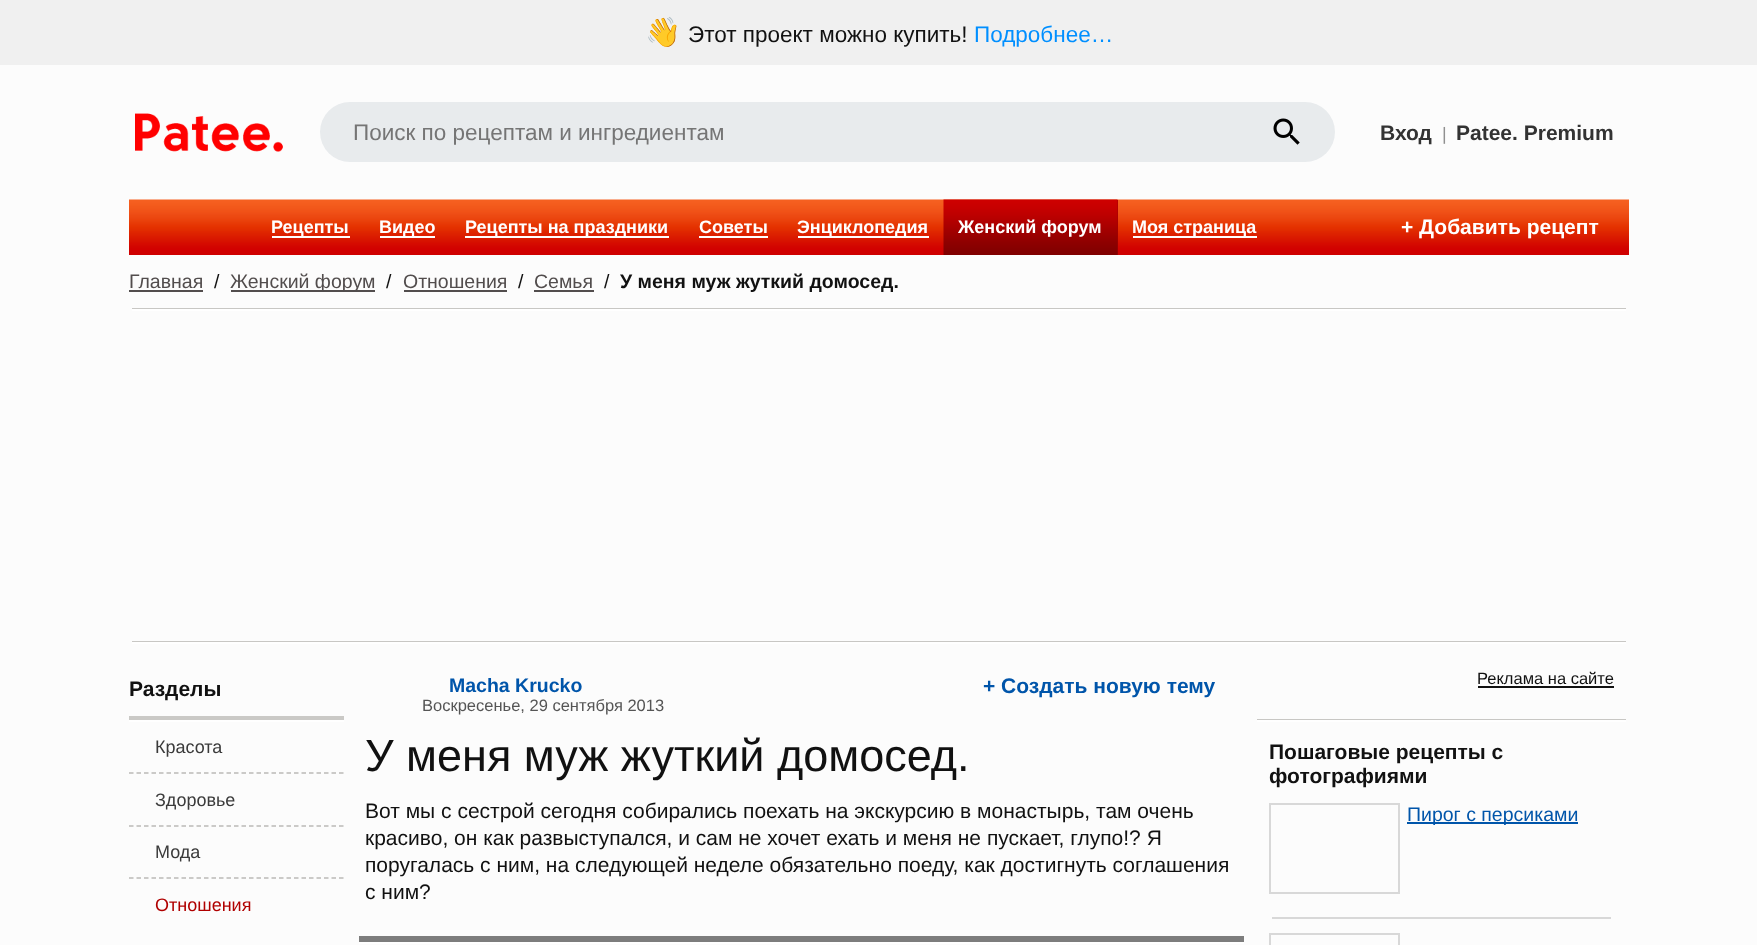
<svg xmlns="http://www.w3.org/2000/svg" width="1757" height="945">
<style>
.a{font:29px Noto Color Emoji;fill:#111}
.b{font:22.5px Liberation Sans;fill:#111}
.c{font:22.5px Liberation Sans;fill:#008fff}
.d{font:22.5px Liberation Sans;fill:#757575}
.e{font:bold 21px Liberation Sans;fill:#333}
.f{font:18px Liberation Sans;fill:#909090}
.g{font:bold 18px Liberation Sans;fill:#fff}
.h{font:bold 21px Liberation Sans;fill:#fff}
.i{font:19.5px Liberation Sans;fill:#524d4d}
.j{font:19.5px Liberation Sans;fill:#111}
.k{font:bold 19.5px Liberation Sans;fill:#111}
.l{font:bold 21px Liberation Sans;fill:#111}
.m{font:18px Liberation Sans;fill:#3b3b3b}
.n{font:18px Liberation Sans;fill:#b00000}
.o{font:bold 19.5px Liberation Sans;fill:#05a}
.p{font:16.5px Liberation Sans;fill:#555}
.q{font:bold 21px Liberation Sans;fill:#05a}
.r{font:45px Liberation Sans;fill:#111}
.s{font:21px Liberation Sans;fill:#111}
.t{font:16.5px Liberation Sans;fill:#111}
.u{font:19.5px Liberation Sans;fill:#05a}
</style>
<rect width="100%" height="100%" fill="#fcfcfc"/>
<path fill="#f0f0f0" d="M0 0h1757v65H0z"/>
<image href="1.png" x="135" y="113" width="148" height="39"/>
<rect fill="#e8ebed" x="320" y="102" width="1015" height="60" rx="30"/>
<image href="2.png" x="1273" y="118" width="27" height="27"/>
<image href="3.png" x="129" y="199" width="1500" height="56"/>
<path fill="#fff" d="M272 236h78v2H272z"/>
<path fill="#fff" d="M380 236h55v2H380z"/>
<path fill="#fff" d="M465 236h204v2H465z"/>
<path fill="#fff" d="M699 236h69v2H699z"/>
<path fill="#fff" d="M798 236h131v2H798z"/>
<path fill="#a30000" d="M1117 200h1v55H1117z"/>
<image href="4.png" x="943" y="199" width="175" height="56"/>
<path fill="#fff" d="M1133 236h124v2H1133z"/>
<path fill="#524d4d" d="M129 290h74v2H129z"/>
<path fill="#524d4d" d="M231 290h144v2H231z"/>
<path fill="#524d4d" d="M404 290h103v2H404z"/>
<path fill="#524d4d" d="M534 290h60v2H534z"/>
<path fill="#c8c7c4" d="M132 308h1494v1H132z"/>
<path fill="#fff" d="M132 309h1494v2H132z"/>
<path fill="#c8c7c4" d="M132 641h1494v1H132z"/>
<path fill="#fff" d="M132 642h1494v2H132z"/>
<path fill="#cac9c6" d="M129 716h215v4H129z"/>
<path fill="#fff" d="M129 720h215v2H129z"/>
<path fill="none" stroke="#bab9b7" stroke-width="1.5" stroke-dasharray="4.5 3" d="M129 773h214.5"/>
<path fill="none" stroke="#bab9b7" stroke-width="1.5" stroke-dasharray="4.5 3" d="M129 826h214.5"/>
<path fill="none" stroke="#bab9b7" stroke-width="1.5" stroke-dasharray="4.5 3" d="M129 878h214.5"/>
<path fill="#7d7d7d" d="M359 936h885v6H359z"/>
<path fill="#fff" d="M359 942h885v2H359z"/>
<path fill="#111" d="M1478 686h136v2H1478z"/>
<path fill="#c8c7c4" d="M1257 719h369v1H1257z"/>
<path fill="#fff" d="M1257 720h369v2H1257z"/>
<path fill="none" stroke="#d8d8d8" stroke-width="2" d="M1270 804h129v89H1270z"/>
<path fill="#05a" d="M1407 822h171v2H1407z"/>
<path fill="#d8d8d8" d="M1272 917h339v2H1272z"/>
<path fill="none" stroke="#d8d8d8" stroke-width="2" d="M1270 934h129v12H1270z"/>
<text class="a" x="645" y="42">👋</text>
<text class="b" x="688" y="42">Этот проект можно купить!</text>
<text class="c" x="974" y="42">Подробнее…</text>
<text class="d" x="353" y="140">Поиск по рецептам и ингредиентам</text>
<text class="e" x="1380" y="140">Вход</text>
<text class="f" x="1442" y="140">|</text>
<text class="e" x="1456" y="140">Patee. Premium</text>
<text class="g" x="271" y="233">Рецепты</text>
<text class="g" x="379" y="233">Видео</text>
<text class="g" x="465" y="233">Рецепты на праздники</text>
<text class="g" x="699" y="233">Советы</text>
<text class="g" x="797" y="233">Энциклопедия</text>
<text class="g" x="958" y="233">Женский форум</text>
<text class="g" x="1132" y="233">Моя страница</text>
<text class="h" x="1401" y="234">+ Добавить рецепт</text>
<text class="i" x="129" y="288">Главная</text>
<text class="j" x="214" y="288">/</text>
<text class="i" x="230" y="288">Женский форум</text>
<text class="j" x="386" y="288">/</text>
<text class="i" x="403" y="288">Отношения</text>
<text class="j" x="518" y="288">/</text>
<text class="i" x="534" y="288">Семья</text>
<text class="j" x="604" y="288">/</text>
<text class="k" x="620" y="288">У меня муж жуткий домосед.</text>
<text class="l" x="129" y="696">Разделы</text>
<text class="m" x="155" y="753">Красота</text>
<text class="m" x="155" y="806">Здоровье</text>
<text class="m" x="155" y="858">Мода</text>
<text class="n" x="155" y="911">Отношения</text>
<text class="o" x="449" y="692">Macha Krucko</text>
<text class="p" x="422" y="711">Воскресенье, 29 сентября 2013</text>
<text class="q" x="983" y="693">+ Создать новую тему</text>
<text class="r" x="365" y="771">У меня муж жуткий домосед.</text>
<text class="s" x="365" y="818">Вот мы с сестрой сегодня собирались поехать на экскурсию в монастырь, там очень</text>
<text class="s" x="365" y="845">красиво, он как развыступался, и сам не хочет ехать и меня не пускает, глупо!? Я</text>
<text class="s" x="365" y="872">поругалась с ним, на следующей неделе обязательно поеду, как достигнуть соглашения</text>
<text class="s" x="365" y="899">с ним?</text>
<text class="t" x="1477" y="684">Реклама на сайте</text>
<text class="l" x="1269" y="759">Пошаговые рецепты с</text>
<text class="l" x="1269" y="783">фотографиями</text>
<text class="u" x="1407" y="821">Пирог с персиками</text>
</svg>
